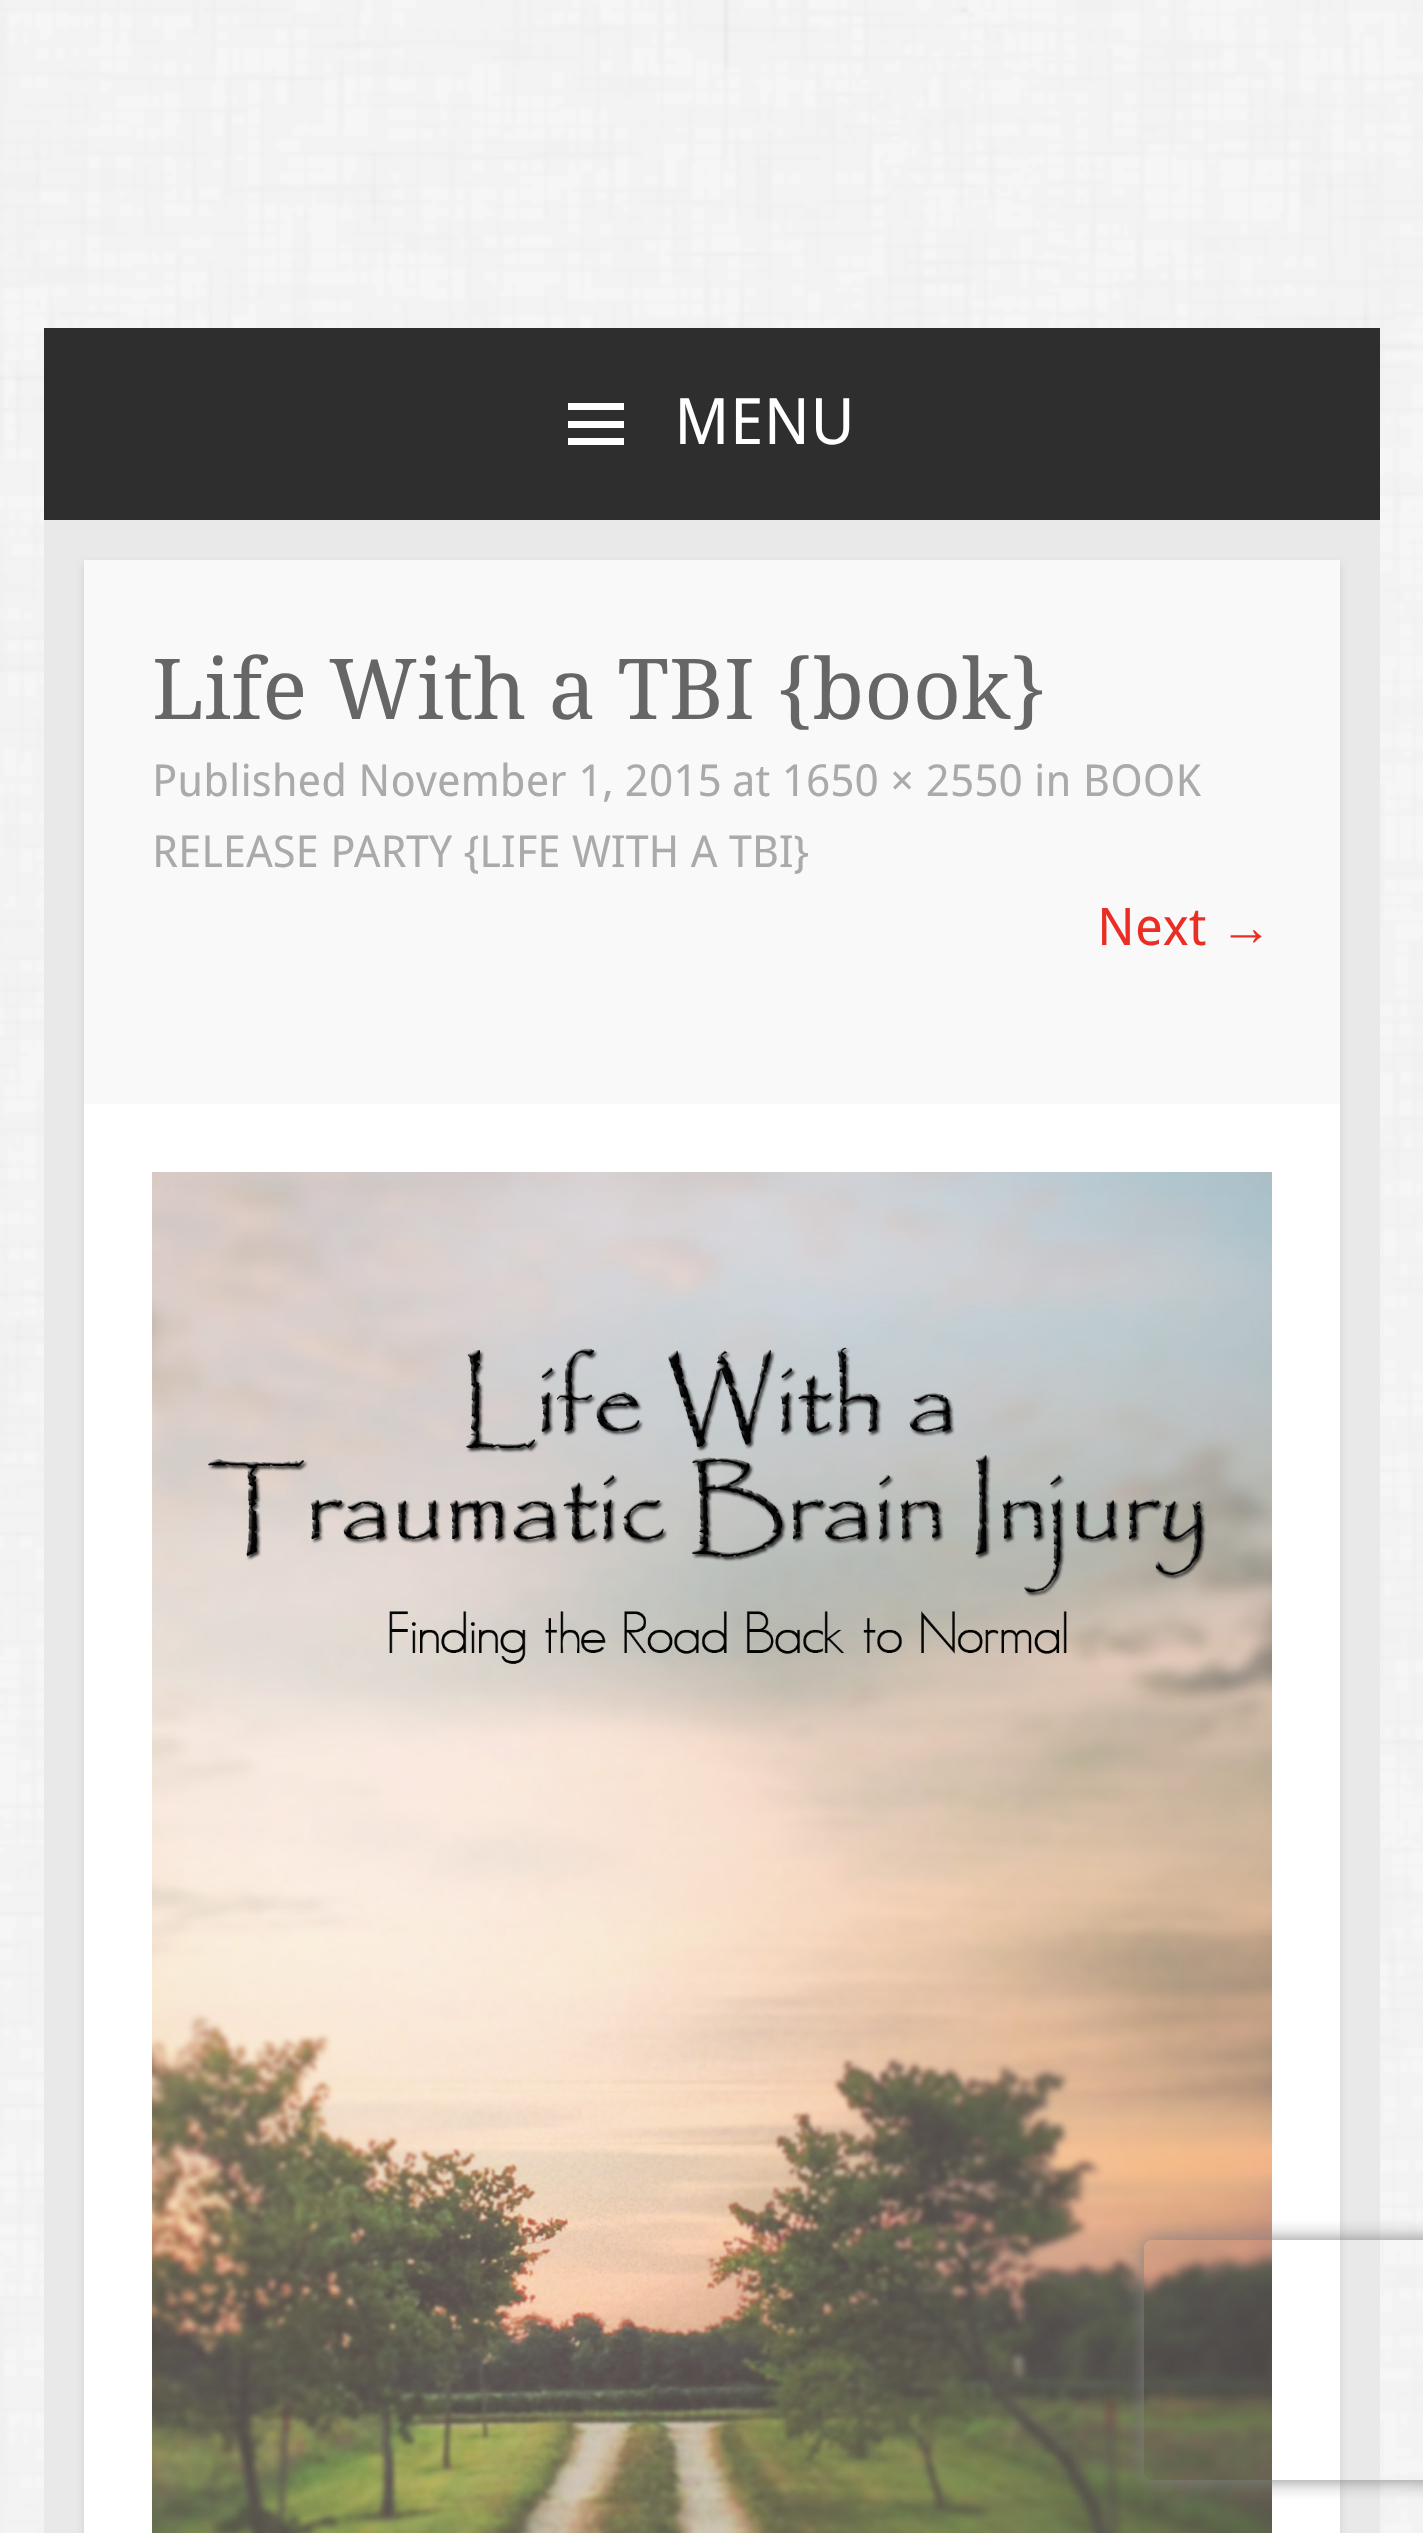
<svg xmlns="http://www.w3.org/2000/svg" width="1423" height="2533">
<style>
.a{font:64px Droid Sans;fill:#fff}
.b{font:84px Droid Serif;fill:#666}
.c{font:44px Droid Sans;fill:#aaa}
.d{font:52px Droid Sans;fill:#ea2e25}
.e{font:52px Liberation Sans;fill:#ea2e25}
</style>
<defs>
<clipPath id="clip1"><path d="M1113 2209h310v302h-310zm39 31h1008c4.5 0 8 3.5 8 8v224c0 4.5-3.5 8-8 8h-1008c-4.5 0-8-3.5-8-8v-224c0-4.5 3.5-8 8-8z" clip-rule="evenodd"/></clipPath>
</defs>
<rect width="100%" height="100%" fill="#fff"/>
<image href="1.png" x="0" y="0" width="1423" height="2533"/>
<path fill="#2e2e2e" d="M44 328h1336v192H44z"/>
<path fill="#fff" d="M568 445v-7h56v7zm0-17v-7h56v7zm0-18v-7h56v7z"/>
<path fill="#e9e9e9" d="M44 520h1336v2013H44z"/>
<path fill="#0000001a" filter="blur(4px)" d="M84 564h1256v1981H84z"/>
<path fill="#fff" d="M84 1104h1256v1429H84z"/>
<path fill="#f9f9f9" d="M84 560h1256v544H84z"/>
<image href="2.png" x="152" y="1172" width="1120" height="1361"/>
<g clip-path="url(#clip1)">
<rect fill="#808080" filter="blur(10px)" x="1144" y="2240" width="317" height="240" rx="8"/>
</g>
<text class="a" x="674" y="444">MENU</text>
<text class="b" x="152" y="719">Life With a TBI {book}</text>
<text class="c" x="152" y="796">Published November 1, 2015</text>
<text class="c" x="732" y="796">at 1650 × 2550 in BOOK</text>
<text class="c" x="152" y="867">RELEASE PARTY {LIFE WITH A TBI}</text>
<text class="d" x="1097" y="945">Next</text>
<text class="e" x="1220" y="945">→</text>
</svg>
